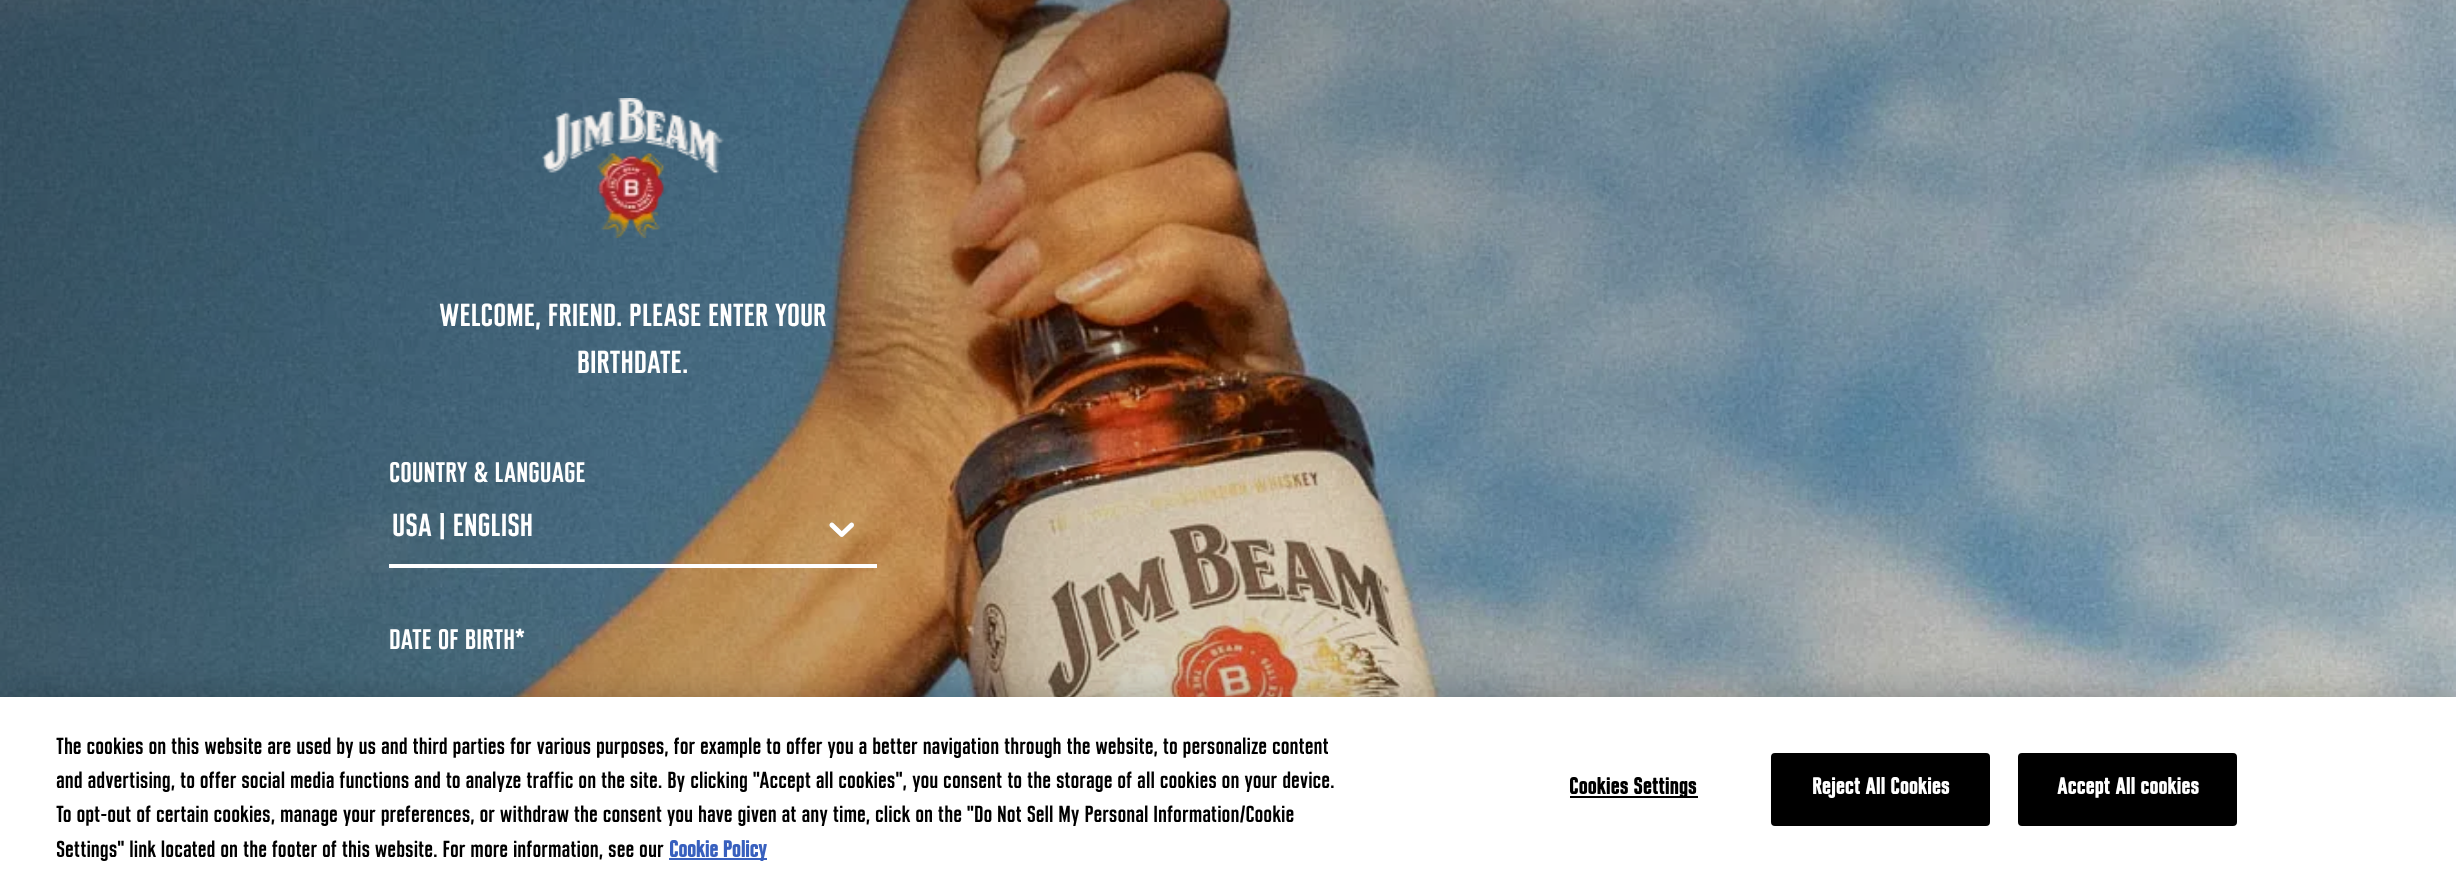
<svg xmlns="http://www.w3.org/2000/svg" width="2456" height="884">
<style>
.a{font:31.5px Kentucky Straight;fill:#fff}
.b{font:28px Kentucky Straight;fill:#fff}
.c{font:22.75px Kentucky Straight;fill:#000}
.d{font:bold 22.75px Kentucky Straight;fill:#3860be}
.e{font:bold 22.75px Kentucky Straight;letter-spacing:0.25px;fill:#000}
.f{font:bold 22.75px Kentucky Straight;letter-spacing:0.25px;fill:#fff}
</style>
<rect width="100%" height="100%" fill="#fff"/>
<image href="1.png" x="0" y="0" width="2456" height="697"/>
<image href="2.png" x="542" y="98" width="182" height="140"/>
<path fill="#fff" d="M389 564h488v4H389z"/>
<image href="3.png" x="829" y="522" width="25" height="15"/>
<path fill="#00000033" filter="blur(16px)" d="M0 697h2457v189H0z"/>
<path fill="#fff" d="M0 697h2456v187H0z"/>
<path fill="#3860be" d="M669 858h98v2H669z"/>
<path fill="#000" d="M1570 796h128v2H1570z"/>
<rect fill="#000" stroke="#000" stroke-width="2" x="1772" y="754" width="217" height="71" rx="3"/>
<rect fill="#000" stroke="#000" stroke-width="2" x="2019" y="754" width="217" height="71" rx="3"/>
<text class="a" x="439" y="326">WELCOME, FRIEND. PLEASE ENTER YOUR</text>
<text class="a" x="577" y="373">BIRTHDATE.</text>
<text class="b" x="389" y="482">COUNTRY &amp; LANGUAGE</text>
<text class="a" x="392" y="536">USA | ENGLISH</text>
<text class="b" x="389" y="649">DATE OF BIRTH*</text>
<text class="c" x="56" y="754">The cookies on this website are used by us and third parties for various purposes, for example to offer you a better navigation through the website, to personalize content</text>
<text class="c" x="56" y="788">and advertising, to offer social media functions and to analyze traffic on the site. By clicking "Accept all cookies", you consent to the storage of all cookies on your device.</text>
<text class="c" x="56" y="822">To opt-out of certain cookies, manage your preferences, or withdraw the consent you have given at any time, click on the "Do Not Sell My Personal Information/Cookie</text>
<text class="c" x="56" y="857">Settings" link located on the footer of this website. For more information, see our</text>
<text class="d" x="669" y="857">Cookie Policy</text>
<text class="e" x="1569" y="794">Cookies Settings</text>
<text class="f" x="1812" y="794">Reject All Cookies</text>
<text class="f" x="2057" y="794">Accept All cookies</text>
</svg>
